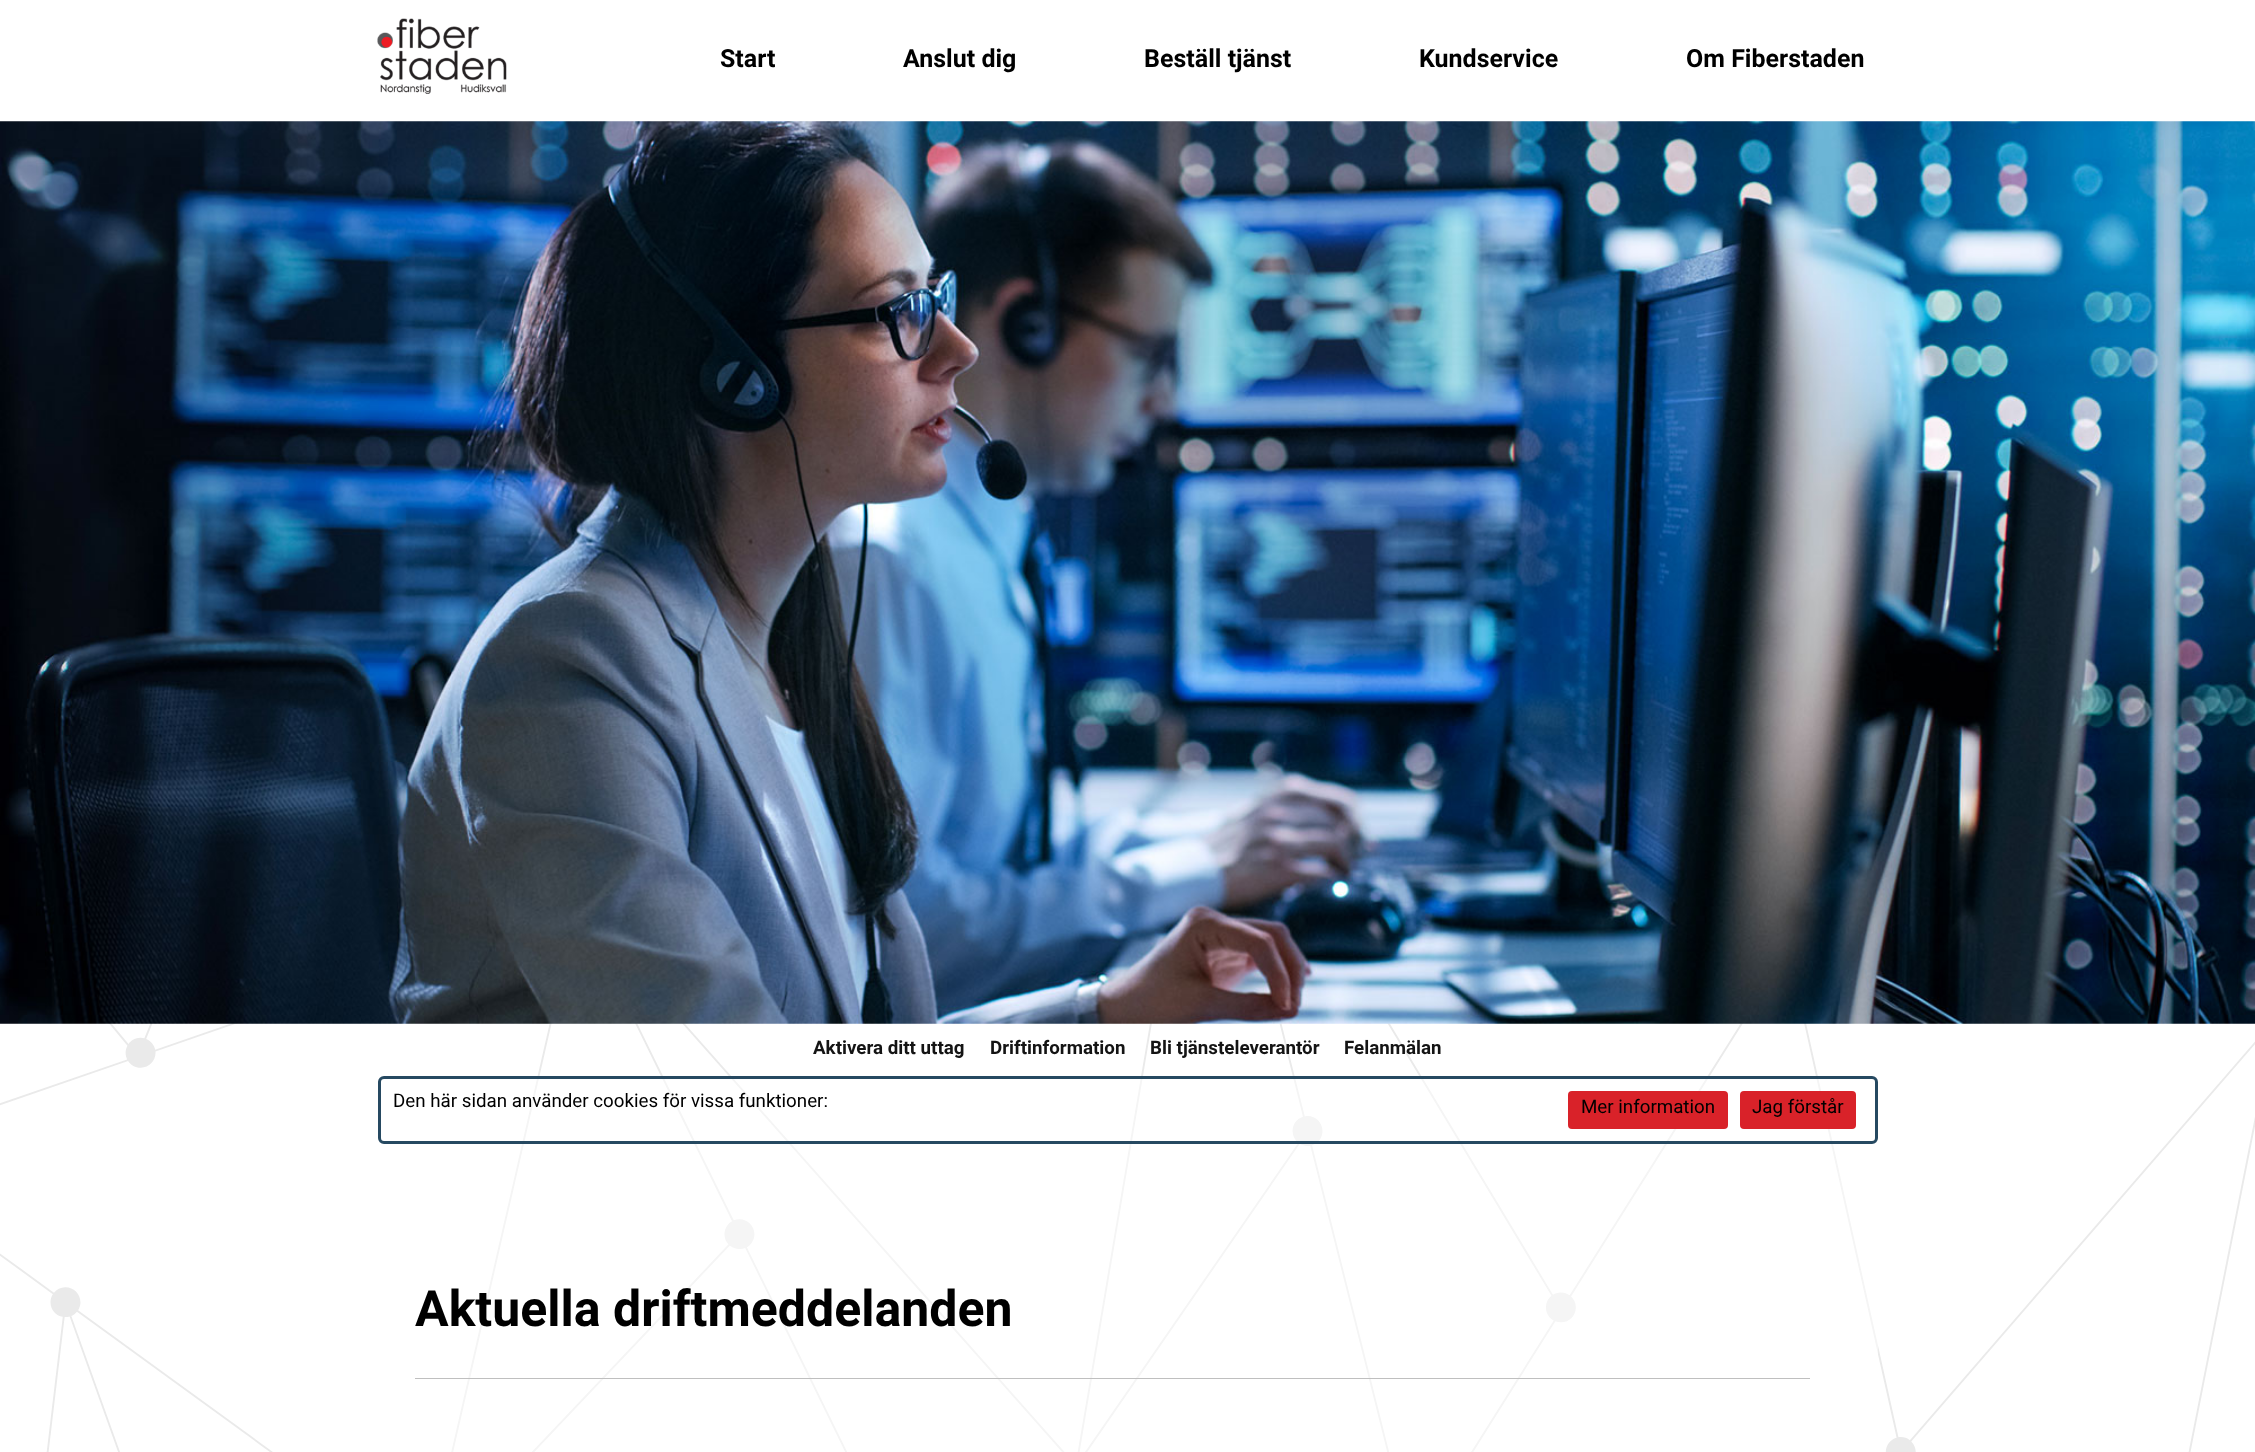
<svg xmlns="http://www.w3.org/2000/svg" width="2255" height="1452">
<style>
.a{font:bold 25px Roboto;fill:#000}
.b{font:bold 18.75px Roboto;fill:#141414}
.c{font:18.75px Roboto;fill:#000}
.d{font:bold 50px Roboto;fill:#000}
</style>
<rect width="100%" height="100%" fill="#fff"/>
<image href="1.png" x="377" y="18" width="130" height="76"/>
<image href="2.png" x="0" y="121" width="2255" height="1331"/>
<image href="3.png" x="0" y="121" width="2255" height="903"/>
<path fill="#ffffff82" d="M451 1076h1427v376H451z"/>
<rect fill="none" stroke="#264961" stroke-width="3" x="379.5" y="1077.5" width="1497" height="65" rx="4.5"/>
<rect fill="#d92229" x="1568" y="1091" width="160" height="38" rx="4"/>
<rect fill="#d92229" x="1740" y="1091" width="116" height="38" rx="4"/>
<path fill="#bfbfbf" d="M415 1378h1395v1H415z"/>
<text class="a" x="720" y="67">Start</text>
<text class="a" x="903" y="67">Anslut dig</text>
<text class="a" x="1144" y="67">Beställ tjänst</text>
<text class="a" x="1419" y="67">Kundservice</text>
<text class="a" x="1686" y="67">Om Fiberstaden</text>
<text class="b" x="813" y="1054">Aktivera ditt uttag</text>
<text class="b" x="990" y="1054">Driftinformation</text>
<text class="b" x="1150" y="1054">Bli tjänsteleverantör</text>
<text class="b" x="1344" y="1054">Felanmälan</text>
<text class="c" x="393" y="1107">Den här sidan använder cookies för vissa funktioner:</text>
<text class="c" x="1581" y="1113">Mer information</text>
<text class="c" x="1752" y="1113">Jag förstår</text>
<text class="d" x="415" y="1326">Aktuella driftmeddelanden</text>
</svg>
